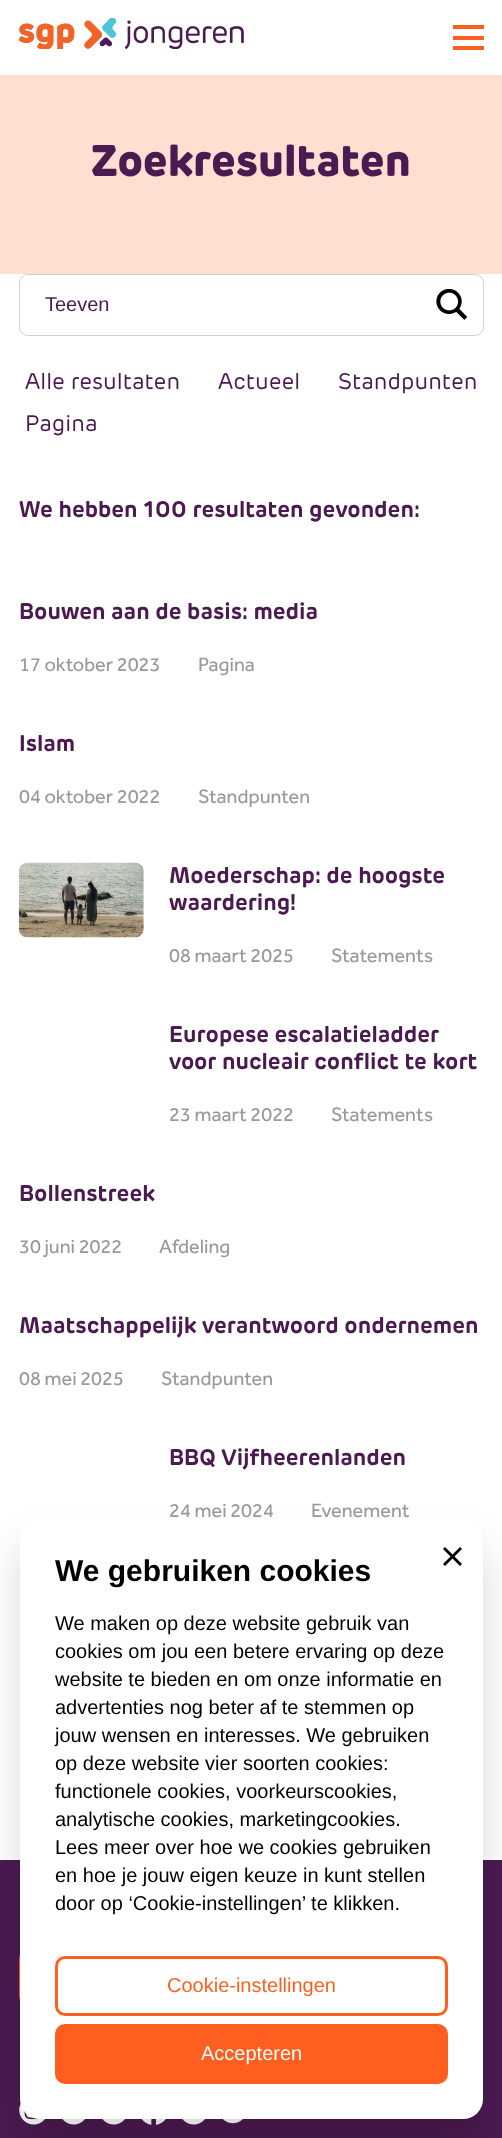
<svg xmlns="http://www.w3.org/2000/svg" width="502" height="2138">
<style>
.a{font:800 43.75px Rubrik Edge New;fill:#4b1a51}
.b{font:20px Liberation Sans;fill:#4b1a51}
.c{font:22.5px Rubrik Edge New;fill:#4b1a51}
.d{font:bold 22.5px Rubrik Edge New;fill:#4b1a51}
.e{font:20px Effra;fill:#999}
.f{font:bold 30px Liberation Sans;fill:#000}
.g{font:20px Liberation Sans;fill:#000}
.h{font:20px Liberation Sans;fill:#ff5f1e}
.i{font:20px Liberation Sans;fill:#fff}
</style>
<rect width="100%" height="100%" fill="#fff"/>
<image href="1.png" x="19" y="18" width="225" height="31"/>
<path fill="#ff5f1e" d="M453 25h31v4H453z"/>
<path fill="#ff5f1e" d="M453 36h31v4H453z"/>
<path fill="#ff5f1e" d="M453 46h31v4H453z"/>
<path fill="#ffdfd2" d="M0 75h502v199H0z"/>
<rect fill="none" stroke="#d1d1d1" x="19.5" y="274.5" width="464" height="61" rx="8.5"/>
<image href="2.png" x="436" y="289" width="32" height="31"/>
<image href="3.png" x="18" y="862" width="126" height="76"/>
<path fill="#4b1a51" d="M0 1860h502v278H0z"/>
<rect fill="#ff5f1e" x="19" y="1950" width="275" height="55" rx="9"/>
<image href="4.png" x="19" y="2103" width="26" height="22"/>
<image href="5.png" x="62" y="2119" width="23" height="6"/>
<image href="5.png" x="102" y="2119" width="23" height="6"/>
<image href="6.png" x="141" y="2119" width="25" height="6"/>
<image href="5.png" x="182" y="2119" width="23" height="6"/>
<image href="7.png" x="223" y="2119" width="20" height="5"/>
<rect fill="#00000026" filter="blur(19px)" x="20" y="1544" width="463" height="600" rx="20"/>
<rect fill="#fff" x="20" y="1519" width="463" height="600" rx="20"/>
<path fill="#000" d="M460 1547l2 2l-17 17l-2-2z"/>
<path fill="#000" d="M445 1547l17 17l-2 2l-17-17z"/>
<rect fill="none" stroke="#ff5f1e" stroke-width="3" x="56.5" y="1957.5" width="390" height="57" rx="8.5"/>
<rect fill="#ff5f1e" stroke="#ff5f1e" stroke-width="3" x="56.5" y="2025.5" width="390" height="57" rx="8.5"/>
<text class="a" x="91" y="176">Zoekresultaten</text>
<text class="b" x="45" y="311">Teeven</text>
<text class="c" x="25" y="389">Alle resultaten</text>
<text class="c" x="218" y="389">Actueel</text>
<text class="c" x="338" y="389">Standpunten</text>
<text class="c" x="25" y="431">Pagina</text>
<text class="d" x="19" y="517">We hebben 100 resultaten gevonden:</text>
<text class="d" x="19" y="619">Bouwen aan de basis: media</text>
<text class="e" x="19" y="671">17 oktober 2023</text>
<text class="e" x="198" y="671">Pagina</text>
<text class="d" x="19" y="751">Islam</text>
<text class="e" x="19" y="803">04 oktober 2022</text>
<text class="e" x="198" y="803">Standpunten</text>
<text class="d" x="169" y="883">Moederschap: de hoogste</text>
<text class="d" x="169" y="910">waardering!</text>
<text class="e" x="169" y="962">08 maart 2025</text>
<text class="e" x="331" y="962">Statements</text>
<text class="d" x="169" y="1042">Europese escalatieladder</text>
<text class="d" x="169" y="1069">voor nucleair conflict te kort</text>
<text class="e" x="169" y="1121">23 maart 2022</text>
<text class="e" x="331" y="1121">Statements</text>
<text class="d" x="19" y="1201">Bollenstreek</text>
<text class="e" x="19" y="1253">30 juni 2022</text>
<text class="e" x="159" y="1253">Afdeling</text>
<text class="d" x="19" y="1333">Maatschappelijk verantwoord ondernemen</text>
<text class="e" x="19" y="1385">08 mei 2025</text>
<text class="e" x="161" y="1385">Standpunten</text>
<text class="d" x="169" y="1465">BBQ Vijfheerenlanden</text>
<text class="e" x="169" y="1517">24 mei 2024</text>
<text class="e" x="311" y="1517">Evenement</text>
<text class="f" x="55" y="1581">We gebruiken cookies</text>
<text class="g" x="55" y="1630">We maken op deze website gebruik van</text>
<text class="g" x="55" y="1658">cookies om jou een betere ervaring op deze</text>
<text class="g" x="55" y="1686">website te bieden en om onze informatie en</text>
<text class="g" x="55" y="1714">advertenties nog beter af te stemmen op</text>
<text class="g" x="55" y="1742">jouw wensen en interesses. We gebruiken</text>
<text class="g" x="55" y="1770">op deze website vier soorten cookies:</text>
<text class="g" x="55" y="1798">functionele cookies, voorkeurscookies,</text>
<text class="g" x="55" y="1826">analytische cookies, marketingcookies.</text>
<text class="g" x="55" y="1854">Lees meer over hoe we cookies gebruiken</text>
<text class="g" x="55" y="1882">en hoe je jouw eigen keuze in kunt stellen</text>
<text class="g" x="55" y="1910">door op ‘Cookie-instellingen’ te klikken.</text>
<text class="h" x="167" y="1992">Cookie-instellingen</text>
<text class="i" x="201" y="2060">Accepteren</text>
</svg>
